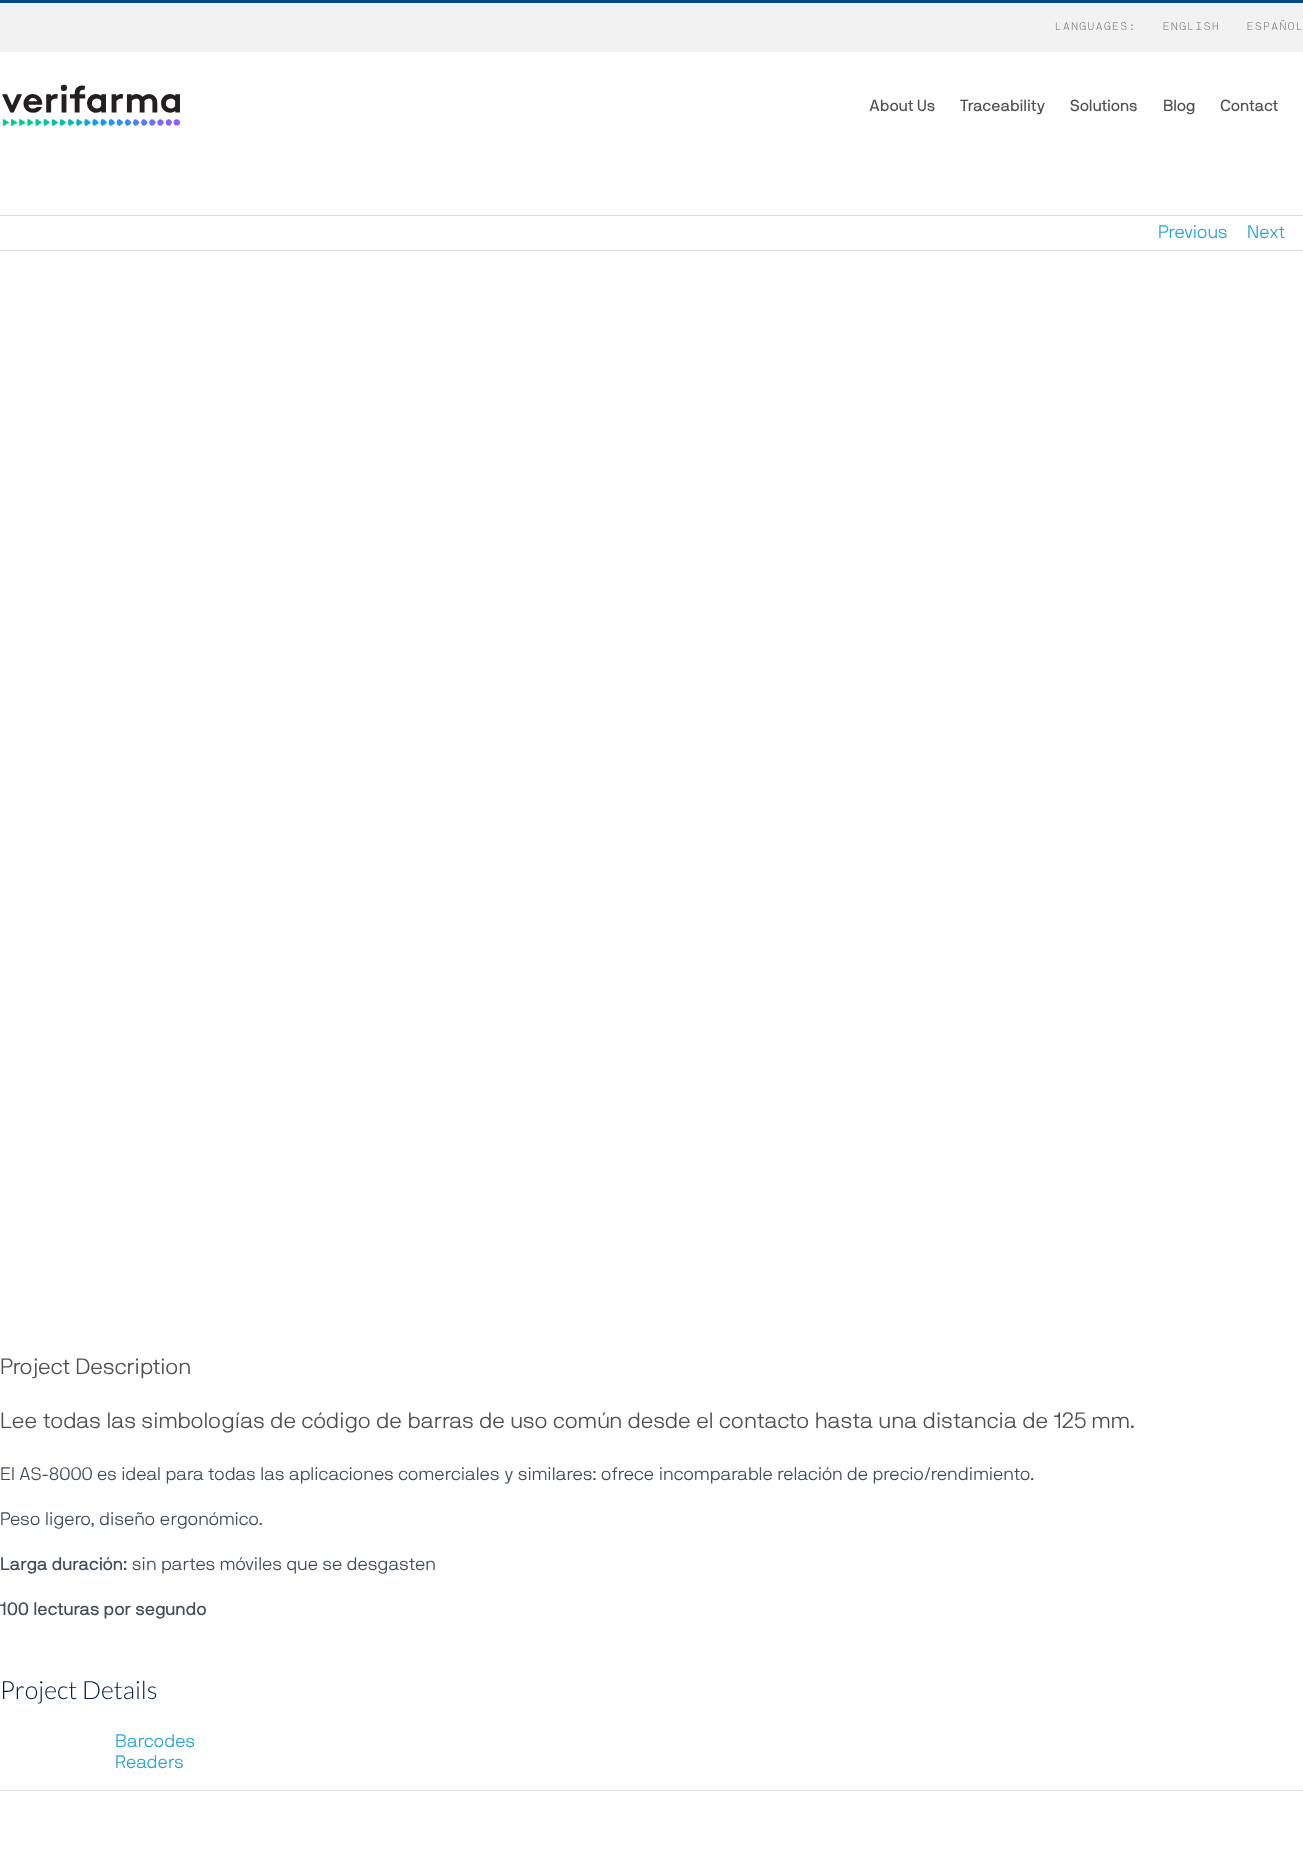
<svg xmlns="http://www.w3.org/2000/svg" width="1303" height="1852">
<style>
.a{font:300 11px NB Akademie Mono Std;fill:#707070}
.b{font:16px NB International;fill:#524f50}
.c{font:300 18px NB International;fill:#2aa4d7}
.d{font:300 22px NB International;fill:#524f50}
.e{font:300 18px NB International;fill:#424d59}
.f{font:18px NB International;fill:#424d59}
.g{font:300 25px Lato;fill:#001c3f}
</style>
<rect width="100%" height="100%" fill="#fff"/>
<path fill="#f2f2f2" d="M0 3h1303v49H0z"/>
<path fill="#004983" d="M0 0h1303v3H0z"/>
<image href="1.png" x="2" y="84" width="178" height="43"/>
<path fill="#e0dede" d="M0 215h1303v1H0z"/>
<path fill="#e0dede" d="M0 250h1303v1H0z"/>
<path fill="#e0dede" d="M0 1790h1303v1H0z"/>
<text class="a" x="1054" y="30">LANGUAGES:</text>
<text class="a" x="1162" y="30">ENGLISH</text>
<text class="a" x="1246" y="30">ESPAÑOL</text>
<text class="b" x="869" y="111">About Us</text>
<text class="b" x="960" y="111">Traceability</text>
<text class="b" x="1070" y="111">Solutions</text>
<text class="b" x="1163" y="111">Blog</text>
<text class="b" x="1220" y="111">Contact</text>
<text class="c" x="1158" y="238">Previous</text>
<text class="c" x="1247" y="238">Next</text>
<text class="d" x="0" y="1374">Project Description</text>
<text class="d" x="0" y="1428">Lee todas las simbologías de código de barras de uso común desde el contacto hasta una distancia de 125 mm.</text>
<text class="e" x="0" y="1480">El AS-8000 es ideal para todas las aplicaciones comerciales y similares: ofrece incomparable relación de precio/rendimiento.</text>
<text class="e" x="0" y="1525">Peso ligero, diseño ergonómico.</text>
<text class="f" x="0" y="1570">Larga duración:</text>
<text class="e" x="132" y="1570">sin partes móviles que se desgasten</text>
<text class="f" x="0" y="1615">100 lecturas por segundo</text>
<text class="g" x="0" y="1699">Project Details</text>
<text class="c" x="115" y="1747">Barcodes</text>
<text class="c" x="115" y="1768">Readers</text>
</svg>
